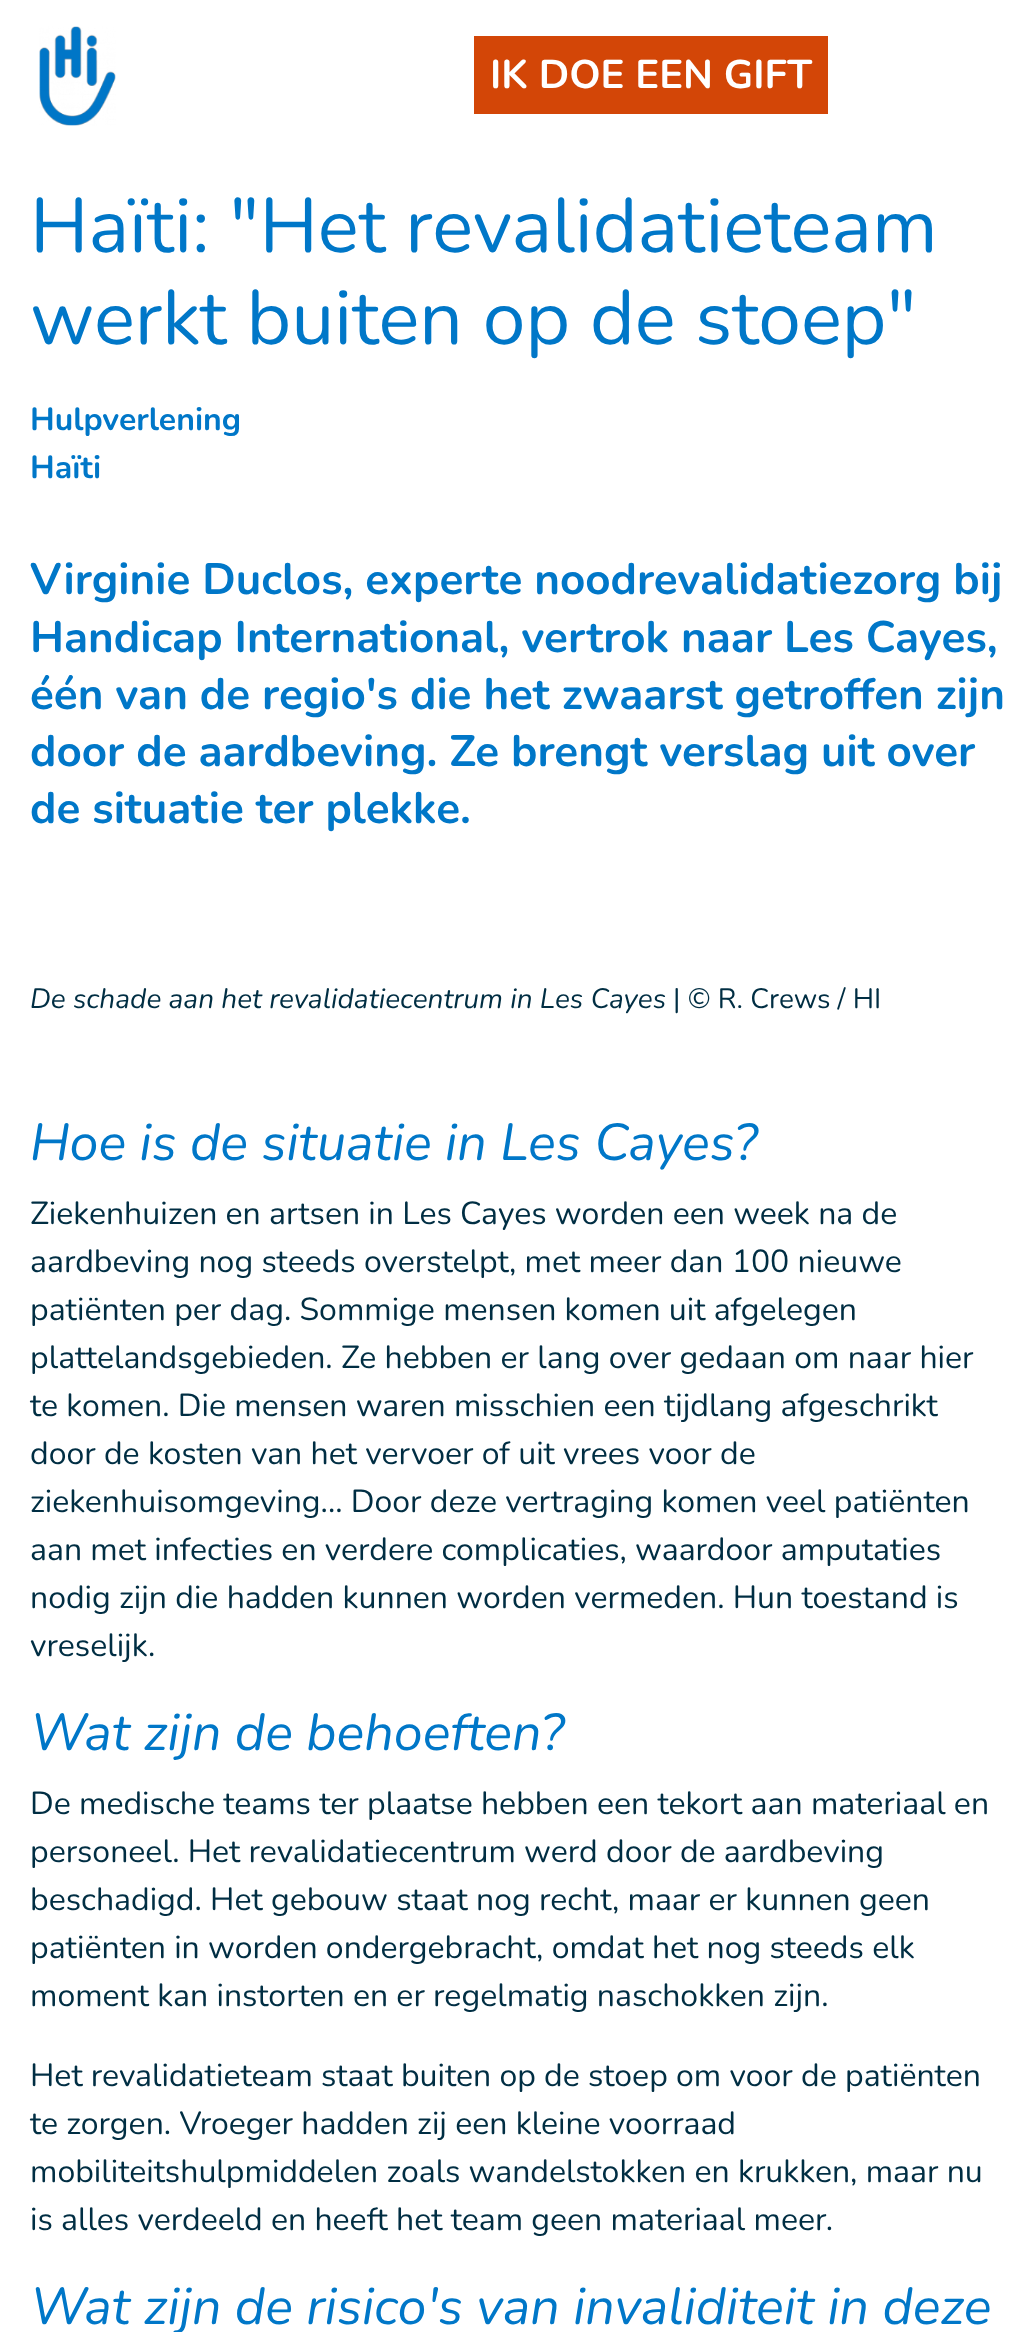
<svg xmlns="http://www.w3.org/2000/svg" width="1035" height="2332">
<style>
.a{font:bold 40px Nunito;fill:#fff}
.b{font:76.75px Nunito;fill:#0077c8}
.c{font:bold 32px Nunito;fill:#0077c8}
.d{font:bold 44px Nunito;fill:#0077c8}
.e{font:italic 200 28px Nunito;fill:#002e43}
.f{font:28px Nunito;fill:#002e43}
.g{font:italic 200 52px Nunito;fill:#0077c8}
.h{font:32px Nunito;fill:#002e43}
</style>
<rect width="100%" height="100%" fill="#fff"/>
<image href="1.png" x="39" y="26" width="77" height="100"/>
<path fill="#d34607" d="M474 36h354v78H474z"/>
<text class="a" x="490" y="88">IK DOE EEN GIFT</text>
<text class="b" x="30" y="252">Haïti: "Het revalidatieteam</text>
<text class="b" x="30" y="344">werkt buiten op de stoep"</text>
<text class="c" x="30" y="430">Hulpverlening</text>
<text class="c" x="30" y="478">Haïti</text>
<text class="d" x="30" y="594">Virginie Duclos, experte noodrevalidatiezorg bij</text>
<text class="d" x="30" y="652">Handicap International, vertrok naar Les Cayes,</text>
<text class="d" x="30" y="709">één van de regio's die het zwaarst getroffen zijn</text>
<text class="d" x="30" y="766">door de aardbeving. Ze brengt verslag uit over</text>
<text class="d" x="30" y="823">de situatie ter plekke.</text>
<text class="e" x="30" y="1008">De schade aan het revalidatiecentrum in Les Cayes</text>
<text class="f" x="673" y="1008">| © R. Crews / HI</text>
<text class="g" x="30" y="1160">Hoe is de situatie in Les Cayes?</text>
<text class="h" x="30" y="1224">Ziekenhuizen en artsen in Les Cayes worden een week na de</text>
<text class="h" x="30" y="1272">aardbeving nog steeds overstelpt, met meer dan 100 nieuwe</text>
<text class="h" x="30" y="1320">patiënten per dag. Sommige mensen komen uit afgelegen</text>
<text class="h" x="30" y="1368">plattelandsgebieden. Ze hebben er lang over gedaan om naar hier</text>
<text class="h" x="30" y="1416">te komen. Die mensen waren misschien een tijdlang afgeschrikt</text>
<text class="h" x="30" y="1464">door de kosten van het vervoer of uit vrees voor de</text>
<text class="h" x="30" y="1512">ziekenhuisomgeving... Door deze vertraging komen veel patiënten</text>
<text class="h" x="30" y="1560">aan met infecties en verdere complicaties, waardoor amputaties</text>
<text class="h" x="30" y="1608">nodig zijn die hadden kunnen worden vermeden. Hun toestand is</text>
<text class="h" x="30" y="1656">vreselijk.</text>
<text class="g" x="30" y="1750">Wat zijn de behoeften?</text>
<text class="h" x="30" y="1814">De medische teams ter plaatse hebben een tekort aan materiaal en</text>
<text class="h" x="30" y="1862">personeel. Het revalidatiecentrum werd door de aardbeving</text>
<text class="h" x="30" y="1910">beschadigd. Het gebouw staat nog recht, maar er kunnen geen</text>
<text class="h" x="30" y="1958">patiënten in worden ondergebracht, omdat het nog steeds elk</text>
<text class="h" x="30" y="2006">moment kan instorten en er regelmatig naschokken zijn.</text>
<text class="h" x="30" y="2086">Het revalidatieteam staat buiten op de stoep om voor de patiënten</text>
<text class="h" x="30" y="2134">te zorgen. Vroeger hadden zij een kleine voorraad</text>
<text class="h" x="30" y="2182">mobiliteitshulpmiddelen zoals wandelstokken en krukken, maar nu</text>
<text class="h" x="30" y="2230">is alles verdeeld en heeft het team geen materiaal meer.</text>
<text class="g" x="30" y="2324">Wat zijn de risico's van invaliditeit in deze</text>
</svg>
